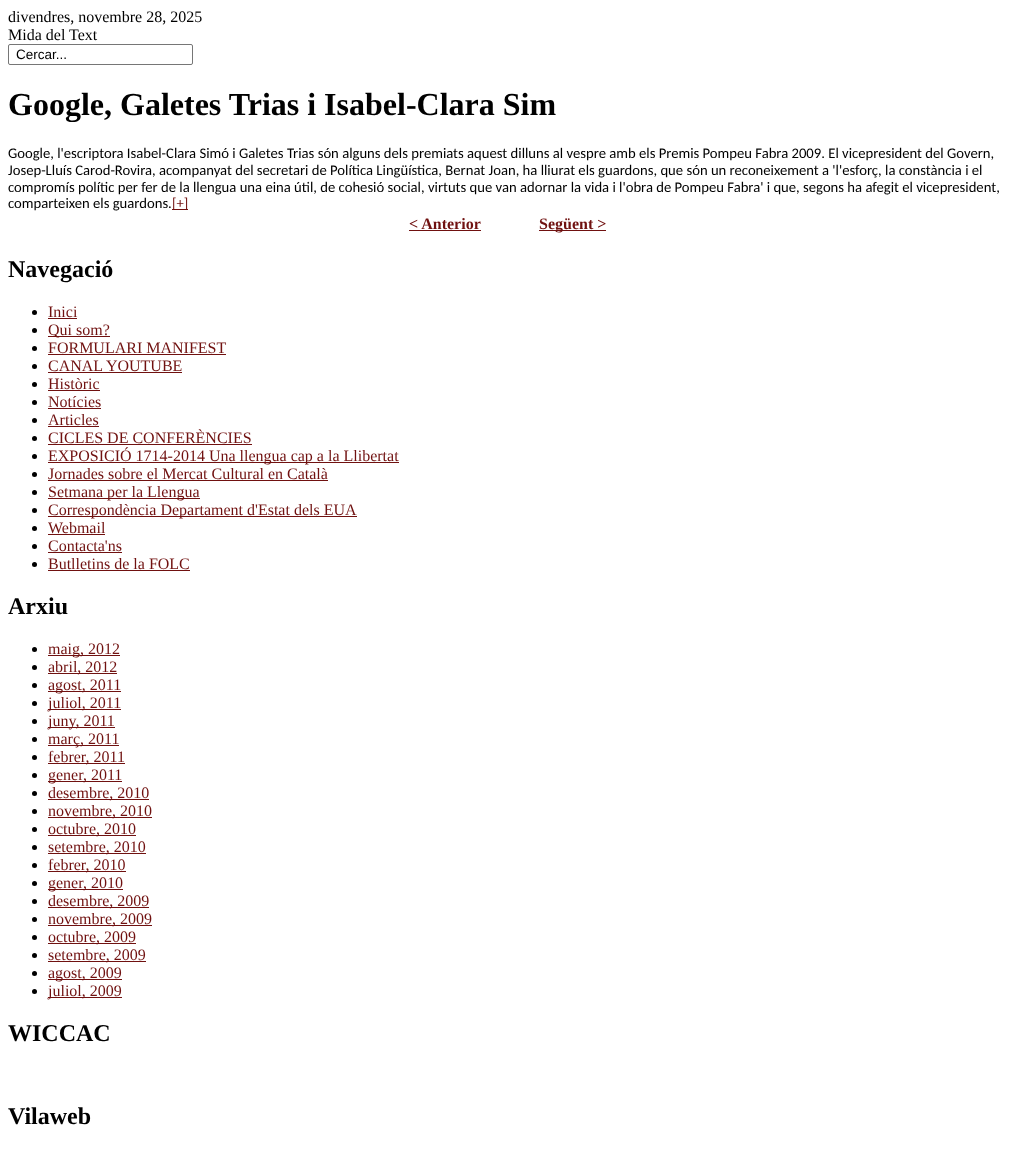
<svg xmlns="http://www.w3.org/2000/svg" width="1015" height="1153">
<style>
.a{font:16px Liberation Serif;fill:#000}
.b{font:13.5px Liberation Sans;fill:#000}
.c{font:bold 32px Liberation Serif;fill:#000}
.d{font:14.67px Carlito;fill:#000}
.e{font:14.67px Carlito;fill:#701110}
.f{font:bold 16px Liberation Serif;fill:#701110}
.g{font:bold 24px Liberation Serif;fill:#000}
.h{font:16px Liberation Serif;fill:#701110}
</style>
<rect width="100%" height="100%" fill="#fff"/>
<rect fill="none" stroke="#767676" x="8.5" y="44.5" width="184" height="20" rx="1.5"/>
<path fill="#701110" d="M172 209h16v1H172z"/>
<path fill="#701110" d="M409 230h72v1H409z"/>
<path fill="#701110" d="M539 230h67v1H539z"/>
<circle fill="#000" cx="34.5" cy="312.5" r="2.5"/>
<path fill="#701110" d="M48 318h29v1H48z"/>
<circle fill="#000" cx="34.5" cy="330.5" r="2.5"/>
<path fill="#701110" d="M48 336h62v1H48z"/>
<circle fill="#000" cx="34.5" cy="348.5" r="2.5"/>
<path fill="#701110" d="M48 354h178v1H48z"/>
<circle fill="#000" cx="34.5" cy="366.5" r="2.5"/>
<path fill="#701110" d="M48 372h134v1H48z"/>
<circle fill="#000" cx="34.5" cy="384.5" r="2.5"/>
<path fill="#701110" d="M48 390h52v1H48z"/>
<circle fill="#000" cx="34.5" cy="402.5" r="2.5"/>
<path fill="#701110" d="M48 408h53v1H48z"/>
<circle fill="#000" cx="34.5" cy="420.5" r="2.5"/>
<path fill="#701110" d="M48 426h51v1H48z"/>
<circle fill="#000" cx="34.5" cy="438.5" r="2.5"/>
<path fill="#701110" d="M48 444h204v1H48z"/>
<circle fill="#000" cx="34.5" cy="456.5" r="2.5"/>
<path fill="#701110" d="M48 462h351v1H48z"/>
<circle fill="#000" cx="34.5" cy="474.5" r="2.5"/>
<path fill="#701110" d="M48 480h280v1H48z"/>
<circle fill="#000" cx="34.5" cy="492.5" r="2.5"/>
<path fill="#701110" d="M48 498h152v1H48z"/>
<circle fill="#000" cx="34.5" cy="510.5" r="2.5"/>
<path fill="#701110" d="M48 516h309v1H48z"/>
<circle fill="#000" cx="34.5" cy="528.5" r="2.5"/>
<path fill="#701110" d="M48 534h57v1H48z"/>
<circle fill="#000" cx="34.5" cy="546.5" r="2.5"/>
<path fill="#701110" d="M48 552h74v1H48z"/>
<circle fill="#000" cx="34.5" cy="564.5" r="2.5"/>
<path fill="#701110" d="M48 570h142v1H48z"/>
<circle fill="#000" cx="34.5" cy="649.5" r="2.5"/>
<path fill="#701110" d="M48 655h72v1H48z"/>
<circle fill="#000" cx="34.5" cy="667.5" r="2.5"/>
<path fill="#701110" d="M48 673h69v1H48z"/>
<circle fill="#000" cx="34.5" cy="685.5" r="2.5"/>
<path fill="#701110" d="M48 691h73v1H48z"/>
<circle fill="#000" cx="34.5" cy="703.5" r="2.5"/>
<path fill="#701110" d="M48 709h73v1H48z"/>
<circle fill="#000" cx="34.5" cy="721.5" r="2.5"/>
<path fill="#701110" d="M48 727h67v1H48z"/>
<circle fill="#000" cx="34.5" cy="739.5" r="2.5"/>
<path fill="#701110" d="M48 745h71v1H48z"/>
<circle fill="#000" cx="34.5" cy="757.5" r="2.5"/>
<path fill="#701110" d="M48 763h77v1H48z"/>
<circle fill="#000" cx="34.5" cy="775.5" r="2.5"/>
<path fill="#701110" d="M48 781h74v1H48z"/>
<circle fill="#000" cx="34.5" cy="793.5" r="2.5"/>
<path fill="#701110" d="M48 799h101v1H48z"/>
<circle fill="#000" cx="34.5" cy="811.5" r="2.5"/>
<path fill="#701110" d="M48 817h104v1H48z"/>
<circle fill="#000" cx="34.5" cy="829.5" r="2.5"/>
<path fill="#701110" d="M48 835h88v1H48z"/>
<circle fill="#000" cx="34.5" cy="847.5" r="2.5"/>
<path fill="#701110" d="M48 853h98v1H48z"/>
<circle fill="#000" cx="34.5" cy="865.5" r="2.5"/>
<path fill="#701110" d="M48 871h78v1H48z"/>
<circle fill="#000" cx="34.5" cy="883.5" r="2.5"/>
<path fill="#701110" d="M48 889h75v1H48z"/>
<circle fill="#000" cx="34.5" cy="901.5" r="2.5"/>
<path fill="#701110" d="M48 907h101v1H48z"/>
<circle fill="#000" cx="34.5" cy="919.5" r="2.5"/>
<path fill="#701110" d="M48 925h104v1H48z"/>
<circle fill="#000" cx="34.5" cy="937.5" r="2.5"/>
<path fill="#701110" d="M48 943h88v1H48z"/>
<circle fill="#000" cx="34.5" cy="955.5" r="2.5"/>
<path fill="#701110" d="M48 961h98v1H48z"/>
<circle fill="#000" cx="34.5" cy="973.5" r="2.5"/>
<path fill="#701110" d="M48 979h74v1H48z"/>
<circle fill="#000" cx="34.5" cy="991.5" r="2.5"/>
<path fill="#701110" d="M48 997h74v1H48z"/>
<text class="a" x="8" y="22">divendres, novembre 28, 2025</text>
<text class="a" x="8" y="40">Mida del Text</text>
<text class="b" x="16" y="59">Cercar...</text>
<text class="c" x="8" y="115">Google, Galetes Trias i Isabel-Clara Sim</text>
<text class="d" x="8" y="158">Google, l'escriptora Isabel-Clara Simó i Galetes Trias són alguns dels premiats aquest dilluns al vespre amb els Premis Pompeu Fabra 2009. El vicepresident del Govern,</text>
<text class="d" x="8" y="175">Josep-Lluís Carod-Rovira, acompanyat del secretari de Política Lingüística, Bernat Joan, ha lliurat els guardons, que són un reconeixement a 'l'esforç, la constància i el</text>
<text class="d" x="8" y="192">compromís polític per fer de la llengua una eina útil, de cohesió social, virtuts que van adornar la vida i l'obra de Pompeu Fabra' i que, segons ha afegit el vicepresident,</text>
<text class="d" x="8" y="208">comparteixen els guardons.</text>
<text class="e" x="172" y="208">[+]</text>
<text class="f" x="409" y="229">&lt; Anterior</text>
<text class="f" x="539" y="229">Següent &gt;</text>
<text class="g" x="8" y="277">Navegació</text>
<text class="h" x="48" y="317">Inici</text>
<text class="h" x="48" y="335">Qui som?</text>
<text class="h" x="48" y="353">FORMULARI MANIFEST</text>
<text class="h" x="48" y="371">CANAL YOUTUBE</text>
<text class="h" x="48" y="389">Històric</text>
<text class="h" x="48" y="407">Notícies</text>
<text class="h" x="48" y="425">Articles</text>
<text class="h" x="48" y="443">CICLES DE CONFERÈNCIES</text>
<text class="h" x="48" y="461">EXPOSICIÓ 1714-2014 Una llengua cap a la Llibertat</text>
<text class="h" x="48" y="479">Jornades sobre el Mercat Cultural en Català</text>
<text class="h" x="48" y="497">Setmana per la Llengua</text>
<text class="h" x="48" y="515">Correspondència Departament d'Estat dels EUA</text>
<text class="h" x="48" y="533">Webmail</text>
<text class="h" x="48" y="551">Contacta'ns</text>
<text class="h" x="48" y="569">Butlletins de la FOLC</text>
<text class="g" x="8" y="614">Arxiu</text>
<text class="h" x="48" y="654">maig, 2012</text>
<text class="h" x="48" y="672">abril, 2012</text>
<text class="h" x="48" y="690">agost, 2011</text>
<text class="h" x="48" y="708">juliol, 2011</text>
<text class="h" x="48" y="726">juny, 2011</text>
<text class="h" x="48" y="744">març, 2011</text>
<text class="h" x="48" y="762">febrer, 2011</text>
<text class="h" x="48" y="780">gener, 2011</text>
<text class="h" x="48" y="798">desembre, 2010</text>
<text class="h" x="48" y="816">novembre, 2010</text>
<text class="h" x="48" y="834">octubre, 2010</text>
<text class="h" x="48" y="852">setembre, 2010</text>
<text class="h" x="48" y="870">febrer, 2010</text>
<text class="h" x="48" y="888">gener, 2010</text>
<text class="h" x="48" y="906">desembre, 2009</text>
<text class="h" x="48" y="924">novembre, 2009</text>
<text class="h" x="48" y="942">octubre, 2009</text>
<text class="h" x="48" y="960">setembre, 2009</text>
<text class="h" x="48" y="978">agost, 2009</text>
<text class="h" x="48" y="996">juliol, 2009</text>
<text class="g" x="8" y="1041">WICCAC</text>
<text class="g" x="8" y="1124">Vilaweb</text>
</svg>
